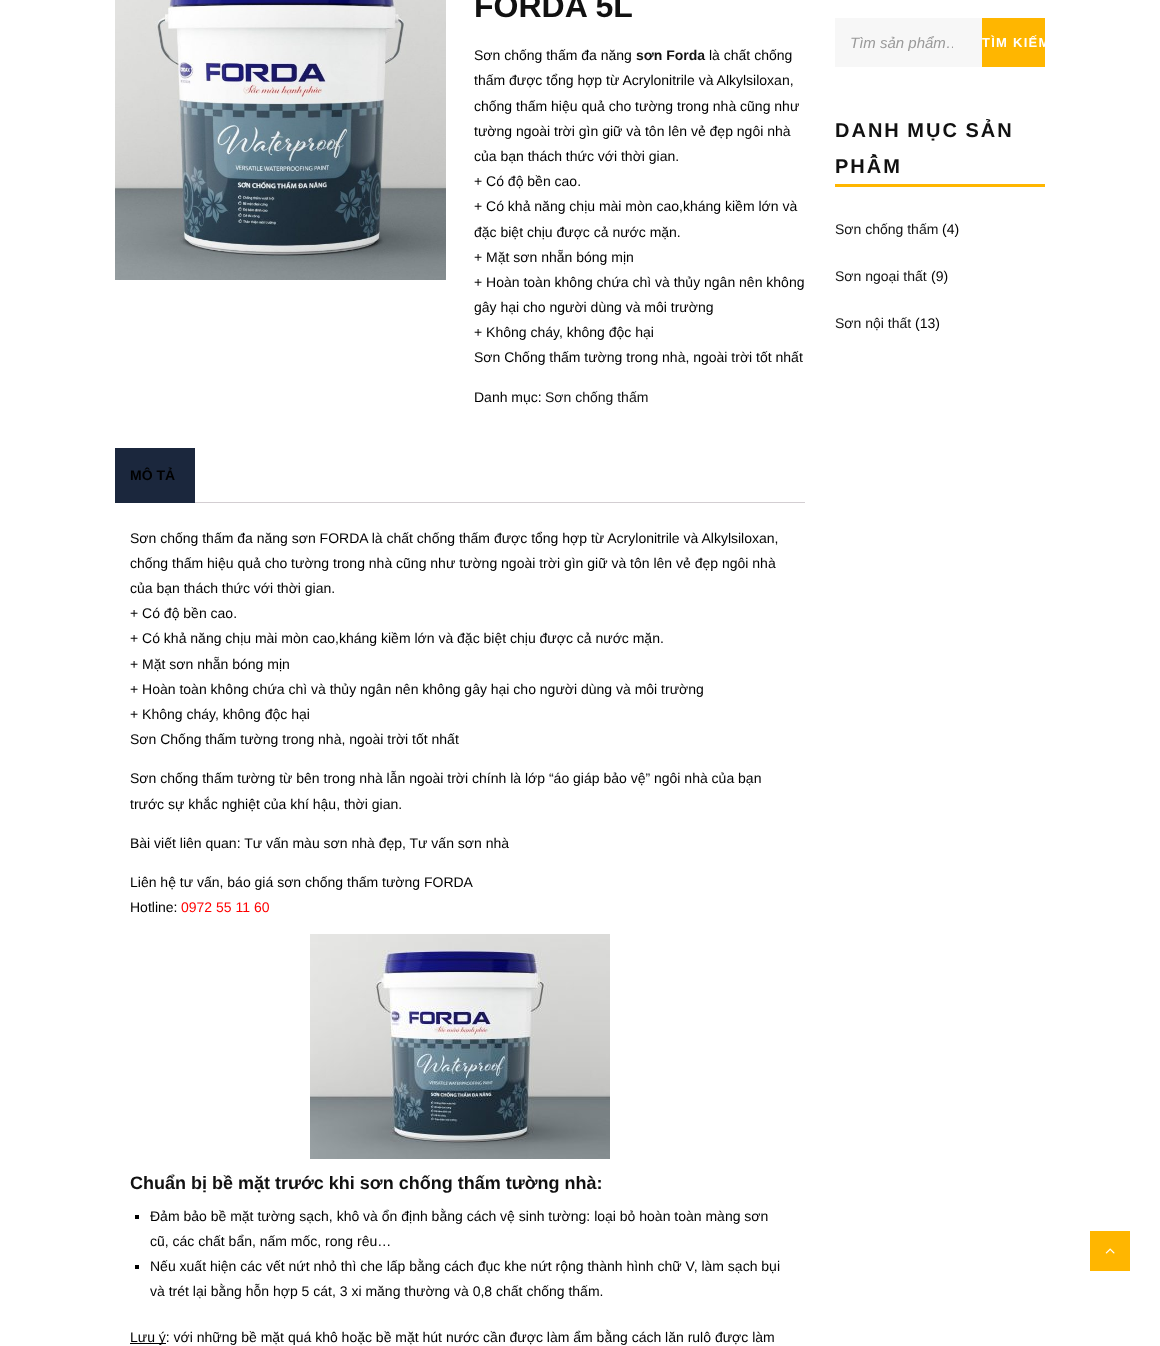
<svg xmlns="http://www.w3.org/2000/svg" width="1160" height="1346">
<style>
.a{font:bold 32px Liberation Sans;fill:#111}
.b{font:14px Liberation Sans;fill:#000}
.c{font:bold 14px Liberation Sans;fill:#111}
.d{font:14px Liberation Sans;fill:#111}
.e{font:bold 14px Liberation Sans;fill:#000}
.f{font:14px Liberation Sans;fill:#f00}
.g{font:bold 18px Liberation Sans;fill:#111}
.h{font:italic 15px Liberation Sans;fill:#999}
.i{font:bold 13px Liberation Sans;letter-spacing:1.25px;fill:#fff}
.j{font:bold 20px Liberation Sans;letter-spacing:2px;fill:#111}
</style>
<defs>
<clipPath id="clip1"><path d="M850 34h103v17H850z"/></clipPath>
<clipPath id="clip2"><path d="M982 18h63v49H982z"/></clipPath>
</defs>
<rect width="100%" height="100%" fill="#fff"/>
<image href="1.png" x="115" y="0" width="331" height="280"/>
<path fill="#1b273d" d="M115 448h80v55H115z"/>
<path fill="#d3ced2" d="M195 502h610v1H195z"/>
<image href="2.png" x="310" y="934" width="300" height="225"/>
<path fill="#000" d="M135 1215h4v4H135z"/>
<path fill="#000" d="M135 1265h4v4H135z"/>
<path fill="#000" d="M130 1343h36v1H130z"/>
<path fill="#f7f7f7" d="M835 18h147v49H835z"/>
<path fill="#ffb600" d="M982 18h63v49H982z"/>
<path fill="#ffb600" d="M835 184h210v3H835z"/>
<path fill="#ffb600" d="M1090 1231h40v40H1090z"/>
<image href="3.png" x="1105" y="1248" width="10" height="6"/>
<text class="a" x="474" y="17">FORDA 5L</text>
<text class="b" x="474" y="60">Sơn chống thấm đa năng</text>
<text class="c" x="636" y="60">sơn Forda</text>
<text class="b" x="709" y="60">là chất chống</text>
<text class="b" x="474" y="85">thấm được tổng hợp từ Acrylonitrile và Alkylsiloxan,</text>
<text class="b" x="474" y="111">chống thấm hiệu quả cho tường trong nhà cũng như</text>
<text class="b" x="474" y="136">tường ngoài trời gìn giữ và tôn lên vẻ đẹp ngôi nhà</text>
<text class="b" x="474" y="161">của bạn thách thức với thời gian.</text>
<text class="b" x="474" y="186">+ Có độ bền cao.</text>
<text class="b" x="474" y="211">+ Có khả năng chịu mài mòn cao,kháng kiềm lớn và</text>
<text class="b" x="474" y="237">đặc biệt chịu được cả nước mặn.</text>
<text class="b" x="474" y="262">+ Mặt sơn nhẵn bóng mịn</text>
<text class="b" x="474" y="287">+ Hoàn toàn không chứa chì và thủy ngân nên không</text>
<text class="b" x="474" y="312">gây hại cho người dùng và môi trường</text>
<text class="b" x="474" y="337">+ Không cháy, không độc hại</text>
<text class="b" x="474" y="362">Sơn Chống thấm tường trong nhà, ngoài trời tốt nhất</text>
<text class="b" x="474" y="402">Danh mục:</text>
<text class="d" x="545" y="402">Sơn chống thấm</text>
<text class="e" x="130" y="480">MÔ TẢ</text>
<text class="b" x="130" y="543">Sơn chống thấm đa năng sơn FORDA là chất chống thấm được tổng hợp từ Acrylonitrile và Alkylsiloxan,</text>
<text class="b" x="130" y="568">chống thấm hiệu quả cho tường trong nhà cũng như tường ngoài trời gìn giữ và tôn lên vẻ đẹp ngôi nhà</text>
<text class="b" x="130" y="593">của bạn thách thức với thời gian.</text>
<text class="b" x="130" y="618">+ Có độ bền cao.</text>
<text class="b" x="130" y="643">+ Có khả năng chịu mài mòn cao,kháng kiềm lớn và đặc biệt chịu được cả nước mặn.</text>
<text class="b" x="130" y="669">+ Mặt sơn nhẵn bóng mịn</text>
<text class="b" x="130" y="694">+ Hoàn toàn không chứa chì và thủy ngân nên không gây hại cho người dùng và môi trường</text>
<text class="b" x="130" y="719">+ Không cháy, không độc hại</text>
<text class="b" x="130" y="744">Sơn Chống thấm tường trong nhà, ngoài trời tốt nhất</text>
<text class="b" x="130" y="783">Sơn chống thấm tường từ bên trong nhà lẫn ngoài trời chính là lớp “áo giáp bảo vệ” ngôi nhà của bạn</text>
<text class="b" x="130" y="809">trước sự khắc nghiệt của khí hậu, thời gian.</text>
<text class="b" x="130" y="848">Bài viết liên quan: Tư vấn màu sơn nhà đẹp, Tư vấn sơn nhà</text>
<text class="b" x="130" y="887">Liên hệ tư vấn, báo giá sơn chống thấm tường FORDA</text>
<text class="b" x="130" y="912">Hotline:</text>
<text class="f" x="181" y="912">0972 55 11 60</text>
<text class="g" x="130" y="1189">Chuẩn bị bề mặt trước khi sơn chống thấm tường nhà:</text>
<text class="b" x="150" y="1221">Đảm bảo bề mặt tường sạch, khô và ổn định bằng cách vệ sinh tường: loại bỏ hoàn toàn màng sơn</text>
<text class="b" x="150" y="1246">cũ, các chất bẩn, nấm mốc, rong rêu…</text>
<text class="b" x="150" y="1271">Nếu xuất hiện các vết nứt nhỏ thì che lấp bằng cách đục khe nứt rộng thành hình chữ V, làm sạch bụi</text>
<text class="b" x="150" y="1296">và trét lại bằng hỗn hợp 5 cát, 3 xi măng thường và 0,8 chất chống thấm.</text>
<text class="b" x="130" y="1342">Lưu ý: với những bề mặt quá khô hoặc bề mặt hút nước cần được làm ẩm bằng cách lăn rulô được làm</text>
<g clip-path="url(#clip1)">
<text class="h" x="850" y="48">Tìm sản phẩm…</text>
</g>
<g clip-path="url(#clip2)">
<text class="i" x="982" y="47">TÌM KIẾM</text>
</g>
<text class="j" x="835" y="137" word-spacing="-1">DANH MỤC SẢN</text>
<text class="j" x="835" y="173">PHẨM</text>
<text class="d" x="835" y="234">Sơn chống thấm</text>
<text class="b" x="942" y="234">(4)</text>
<text class="d" x="835" y="281">Sơn ngoại thất</text>
<text class="b" x="931" y="281">(9)</text>
<text class="d" x="835" y="328">Sơn nội thất</text>
<text class="b" x="915" y="328">(13)</text>
</svg>
